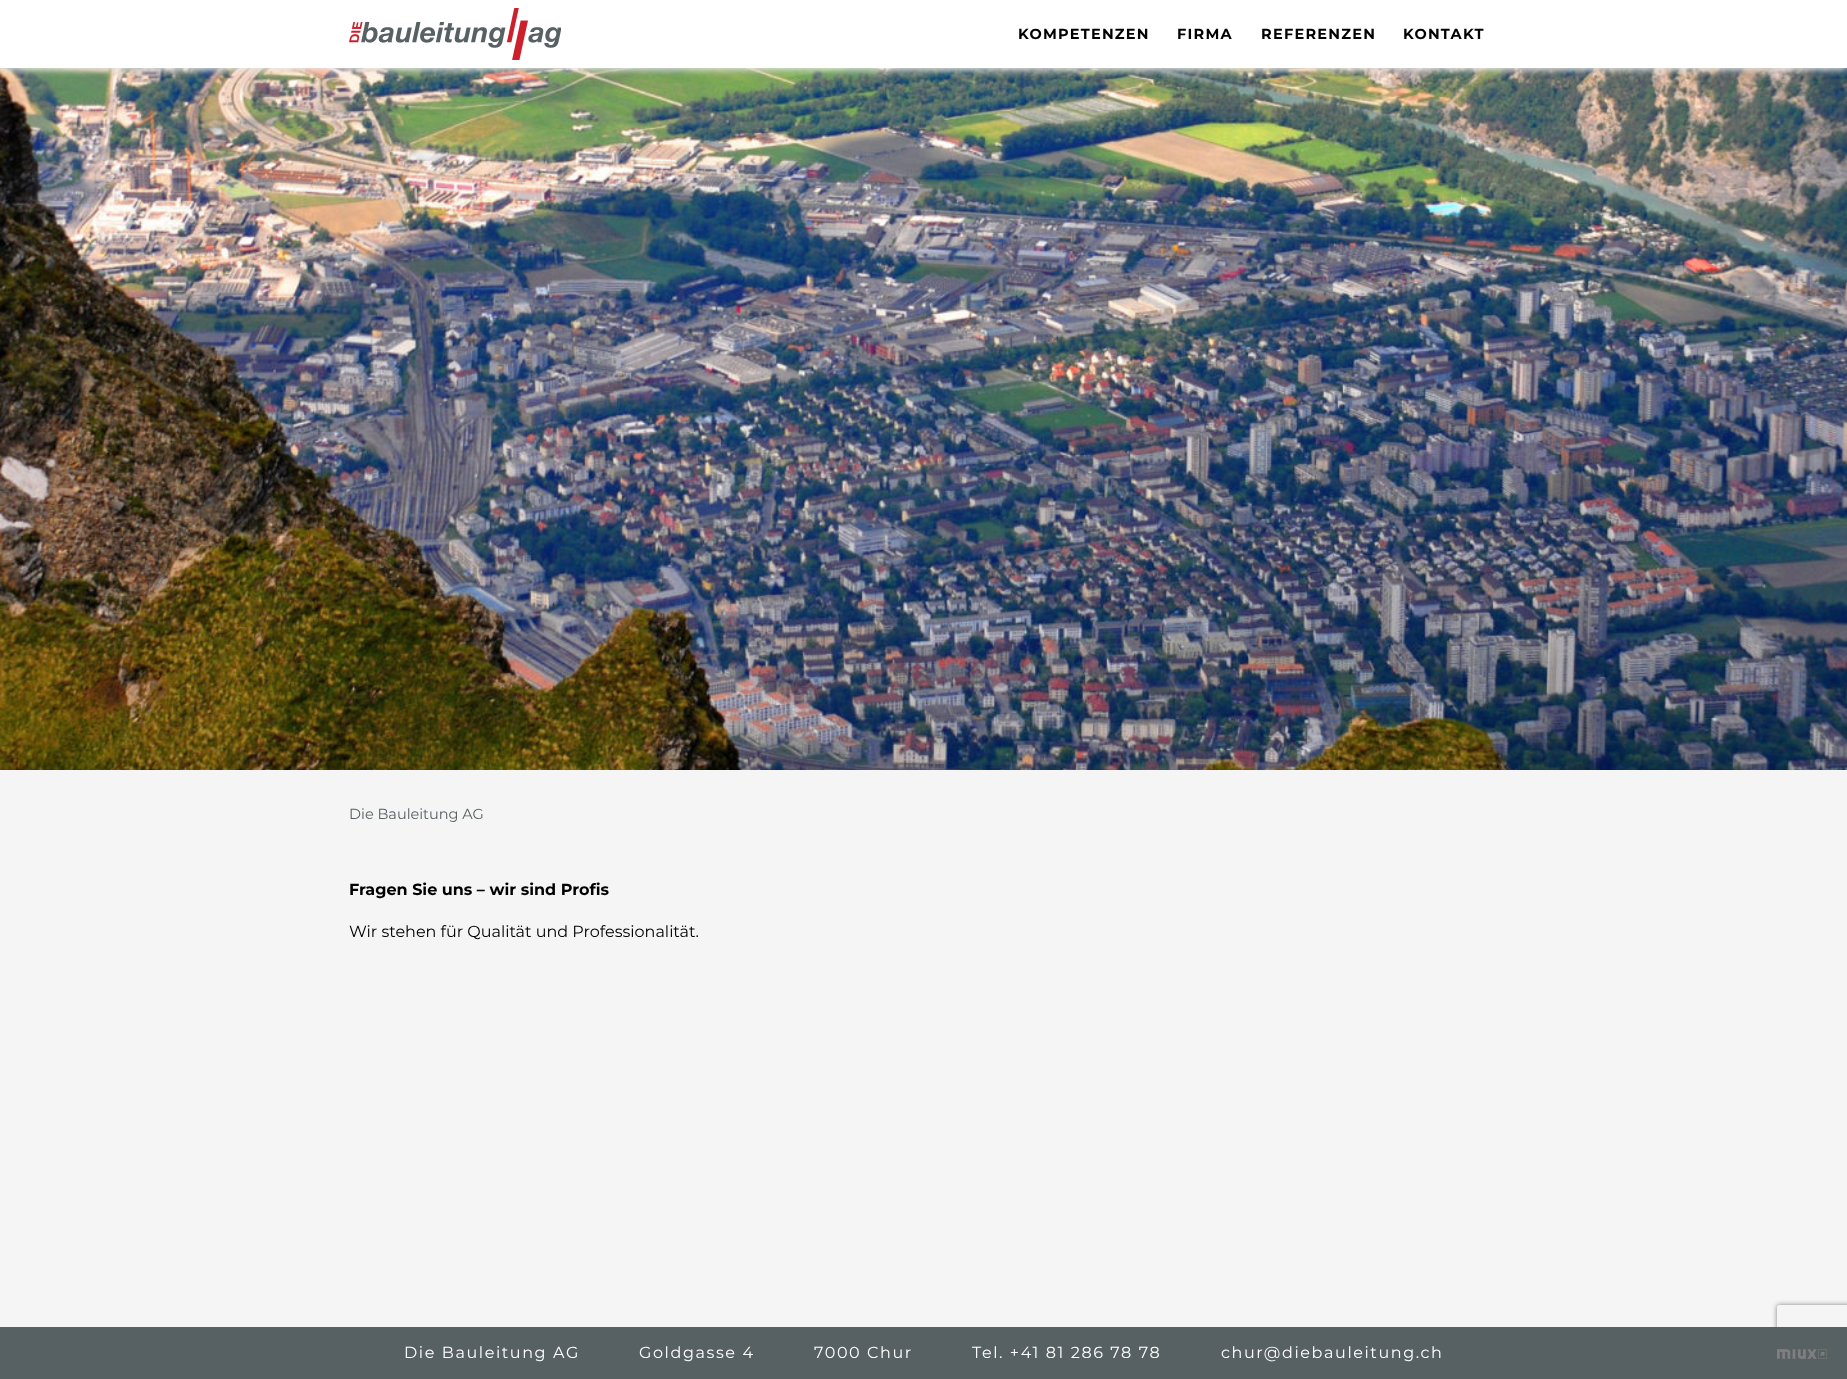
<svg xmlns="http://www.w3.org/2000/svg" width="1847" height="1379">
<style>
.a{font:bold 14.5px Montserrat;letter-spacing:1.25px;fill:#000}
.b{font:14.5px Montserrat;fill:#576063}
.c{font:bold 16px Montserrat;fill:#000}
.d{font:16px Montserrat;fill:#000}
.e{font:16px Montserrat;letter-spacing:1.6px;fill:#fff}
</style>
<defs>
<clipPath id="clip1"><path d="M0 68h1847v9H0z"/></clipPath>
<clipPath id="clip2"><path d="M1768 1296h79v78h-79zm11 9h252c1 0 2 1 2 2v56c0 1-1 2-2 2h-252c-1 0-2-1-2-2v-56c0-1 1-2 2-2z" clip-rule="evenodd"/></clipPath>
</defs>
<rect width="100%" height="100%" fill="#fff"/>
<image href="2.png" x="0" y="68" width="1847" height="702"/>
<g clip-path="url(#clip1)">
<path fill="#e6e6e6" filter="blur(3.5px)" d="M0 2h1847v68H0z"/>
</g>
<image href="1.png" x="349" y="8" width="212" height="52"/>
<path fill="#f5f5f5" d="M0 770h1847v557H0z"/>
<g clip-path="url(#clip2)">
<rect fill="#808080" filter="blur(2.5px)" x="1777" y="1305" width="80" height="60" rx="2"/>
</g>
<path fill="#576063" d="M0 1327h1847v52H0z"/>
<image href="3.png" x="1777" y="1349" width="50" height="10"/>
<text class="a" x="1018" y="39">KOMPETENZEN</text>
<text class="a" x="1177" y="39">FIRMA</text>
<text class="a" x="1261" y="39">REFERENZEN</text>
<text class="a" x="1403" y="39">KONTAKT</text>
<text class="b" x="349" y="819">Die Bauleitung AG</text>
<text class="c" x="349" y="895">Fragen Sie uns – wir sind Profis</text>
<text class="d" x="349" y="937">Wir stehen für Qualität und Professionalität.</text>
<text class="e" x="404" y="1358">Die Bauleitung AG</text>
<text class="e" x="639" y="1358">Goldgasse 4</text>
<text class="e" x="814" y="1358">7000 Chur</text>
<text class="e" x="972" y="1358">Tel. +41 81 286 78 78</text>
<text class="e" x="1221" y="1358">chur@diebauleitung.ch</text>
</svg>
